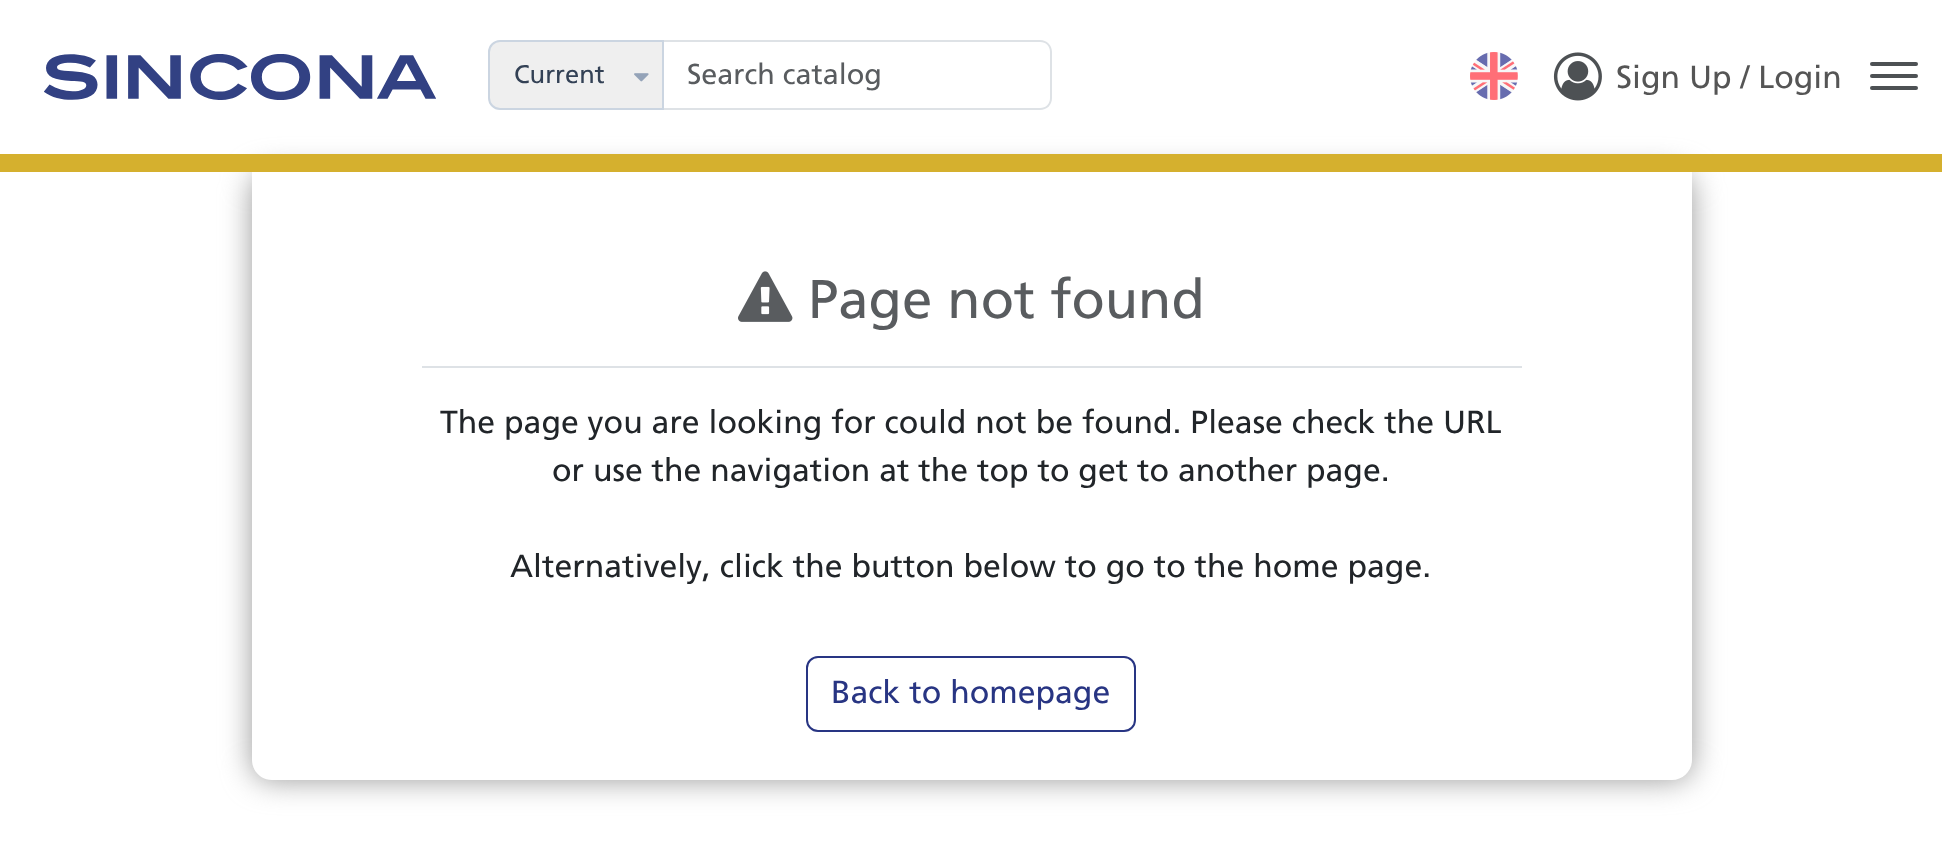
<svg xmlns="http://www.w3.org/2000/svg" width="1942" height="842">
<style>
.a{font:25.5px 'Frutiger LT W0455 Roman';fill:#334155}
.b{font:28.75px 'Frutiger LT W0455 Roman';fill:#595c5f}
.c{font:32px 'Frutiger LT W0455 Roman';fill:#555}
.d{font:54.5px 'Frutiger LT W0455 Roman';fill:#595c5f}
.e{font:32px 'Frutiger LT W0455 Roman';fill:#212529}
.f{font:32px 'Frutiger LT W0455 Roman';fill:#283583}
</style>
<rect width="100%" height="100%" fill="#fff"/>
<image href="1.png" x="44" y="54" width="392" height="46"/>
<path fill="#efefef" stroke="#cbd5e1" stroke-width="2" d="M500 41h163v68h-163c-6 0-11-5-11-11v-46c0-6 5-11 11-11z"/>
<image href="2.png" x="634" y="73" width="15" height="9"/>
<path fill="#dee2e6" fill-rule="evenodd" d="M664 40h376c7 0 12 5 12 12v46c0 7-5 12-12 12h-376zm0 2h376c6 0 10 4 10 10v46c0 6-4 10-10 10h-376z"/>
<image href="3.png" x="1470" y="52" width="48" height="48"/>
<image href="4.png" x="1553" y="52" width="49" height="49"/>
<rect fill="#4d5154" x="1870" y="62" width="48" height="4" rx="2"/>
<rect fill="#4d5154" x="1870" y="74" width="48" height="4" rx="2"/>
<rect fill="#4d5154" x="1870" y="86" width="48" height="4" rx="2"/>
<rect fill="#999" filter="blur(15px)" x="252" y="172" width="1440" height="608" rx="20"/>
<path fill="#d5b02e" d="M0 154h1942v18H0z"/>
<path fill="#fff" d="M252 172h1440v588c0 11-9 20-20 20h-1400c-11 0-20-9-20-20z"/>
<image href="5.png" x="738" y="271" width="55" height="51"/>
<path fill="#dee2e6" d="M422 366h1100v2H422z"/>
<rect fill="none" stroke="#283583" stroke-width="2" x="807" y="657" width="328" height="74" rx="11"/>
<text class="a" x="514" y="83">Current</text>
<text class="b" x="687" y="84">Search catalog</text>
<text class="c" x="1616" y="88">Sign Up / Login</text>
<text class="d" x="808" y="318">Page not found</text>
<text class="e" x="440" y="433">The page you are looking for could not be found. Please check the URL</text>
<text class="e" x="552" y="481">or use the navigation at the top to get to another page.</text>
<text class="e" x="510" y="577">Alternatively, click the button below to go to the home page.</text>
<text class="f" x="831" y="703">Back to homepage</text>
</svg>
